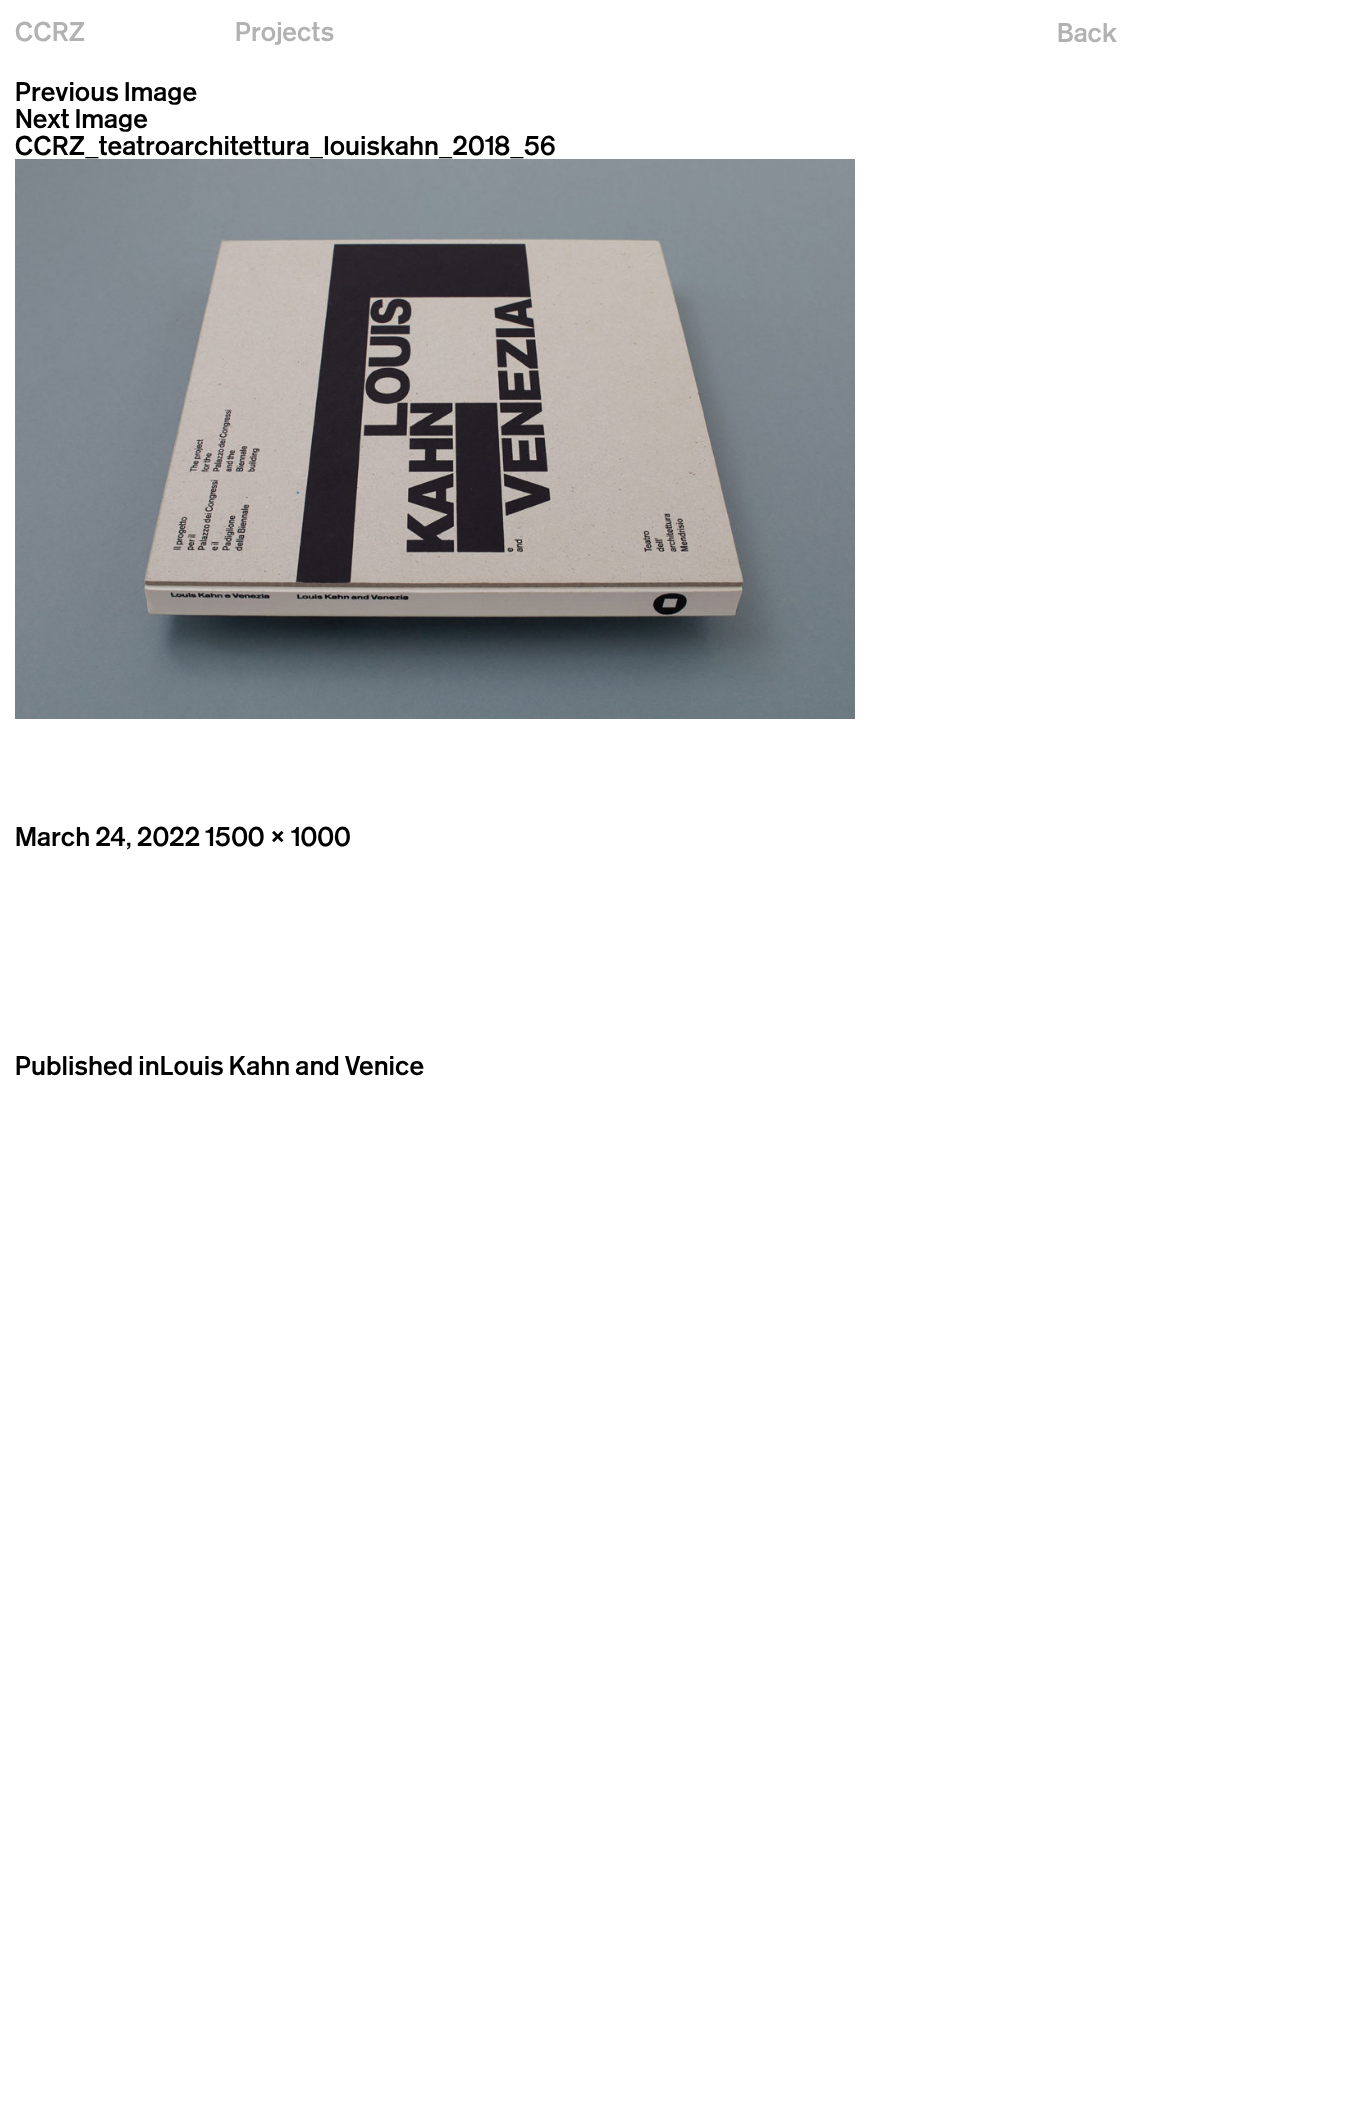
<svg xmlns="http://www.w3.org/2000/svg" width="1353" height="2125">
<style>
.a{font:500 27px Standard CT;fill:#b2b2b2}
.b{font:500 27px Standard CT;fill:#000}
</style>
<rect width="100%" height="100%" fill="#fff"/>
<image href="1.png" x="15" y="159" width="840" height="560"/>
<text class="a" x="15" y="41">CCRZ</text>
<text class="a" x="235" y="41">Projects</text>
<text class="a" x="1057" y="42">Back</text>
<text class="b" x="15" y="101">Previous Image</text>
<text class="b" x="15" y="128">Next Image</text>
<text class="b" x="15" y="155">CCRZ_teatroarchitettura_louiskahn_2018_56</text>
<text class="b" x="15" y="846">March 24, 2022 1500 × 1000</text>
<text class="b" x="15" y="1075">Published inLouis Kahn and Venice</text>
</svg>
